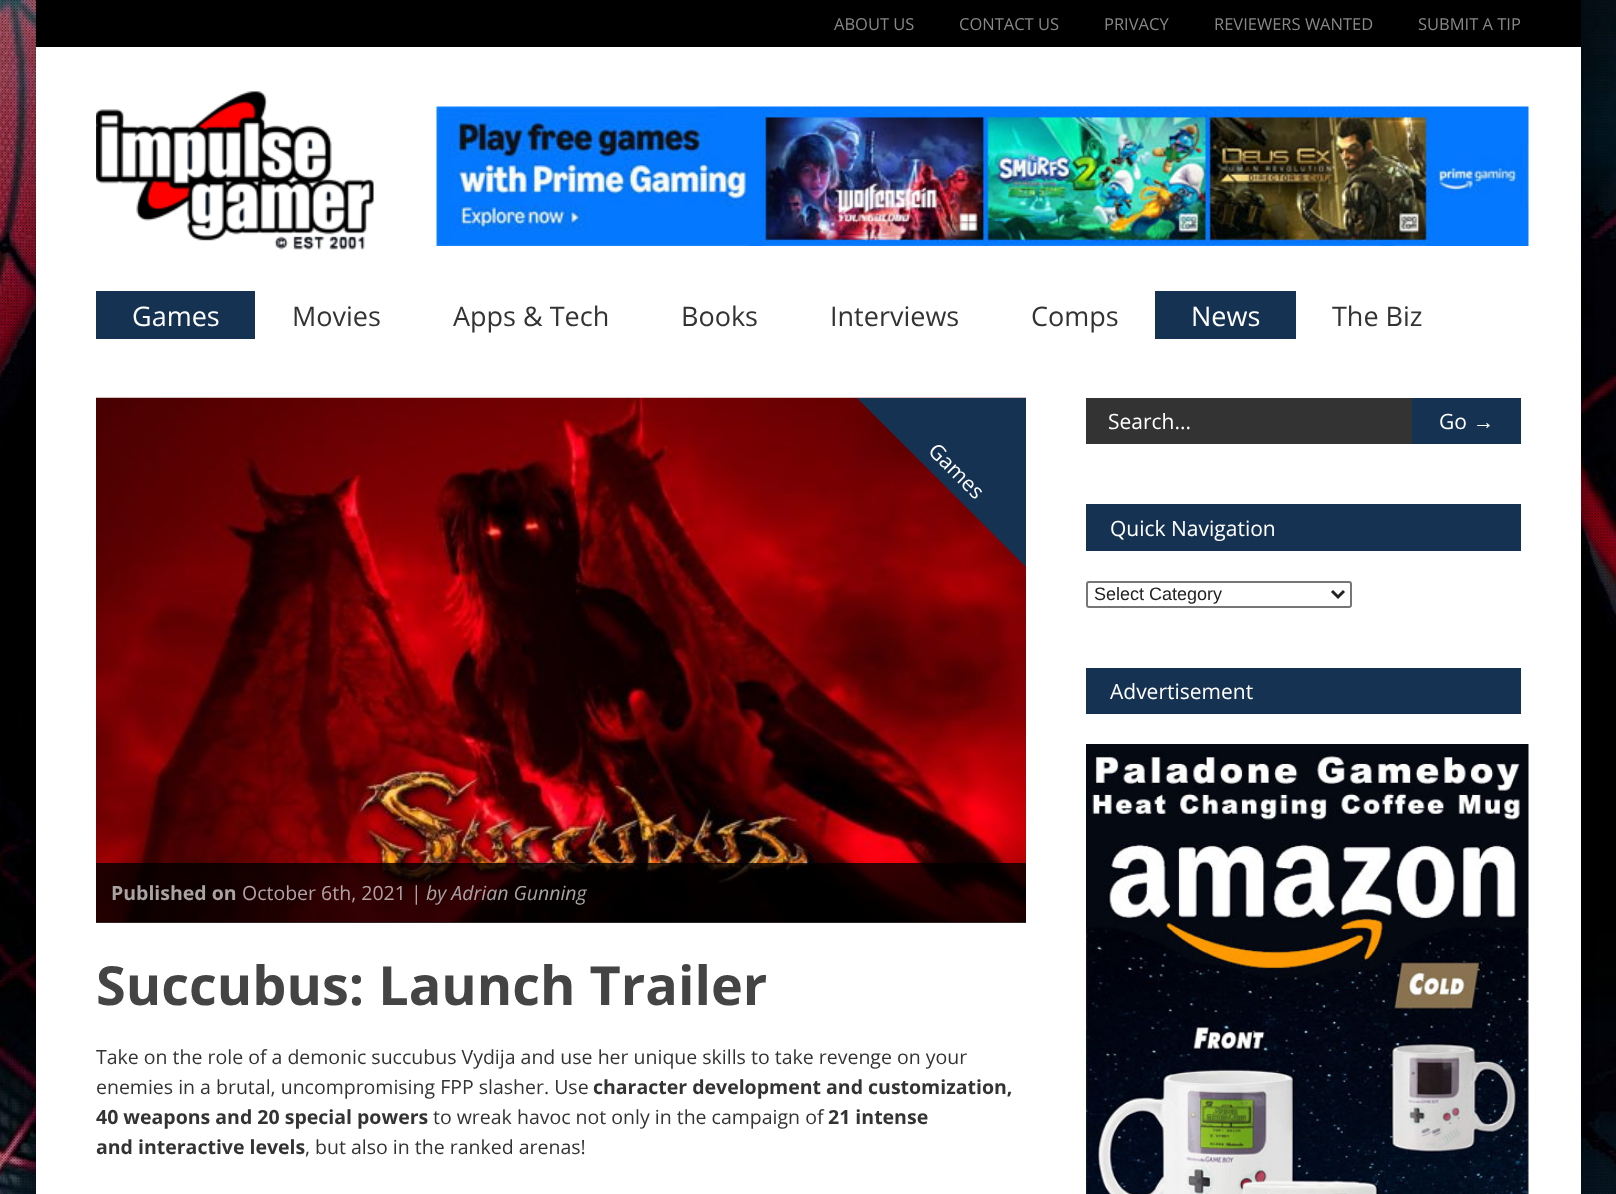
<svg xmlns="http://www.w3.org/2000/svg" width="1616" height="1194">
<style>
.a{font:16.5px Open Sans;fill:#888}
.b{font:27px Open Sans;fill:#fff}
.c{font:27px Open Sans;fill:#333}
.d{font:21px Open Sans;fill:#fff}
.e{font:bold 19.5px Open Sans;fill:#a9a3a3}
.f{font:19.5px Open Sans;fill:#b1a3a4}
.g{font:italic 19.5px Open Sans;fill:#a9a3a3}
.h{font:bold 54px Open Sans;fill:#444}
.i{font:19.5px Open Sans;fill:#333}
.j{font:bold 19.5px Open Sans;fill:#333}
.k{font:21px Liberation Sans;fill:#fff}
.l{font:18px Liberation Sans;fill:#222}
</style>
<defs>
<clipPath id="clip1"><path d="M96 398h930v525H96z"/></clipPath>
</defs>
<rect width="100%" height="100%" fill="#fff"/>
<image href="1.png" x="0" y="0" width="1616" height="1194"/>
<image href="2.png" x="0" y="0" width="1616" height="1194"/>
<path fill="#000" d="M36 0h1545v47H36z"/>
<path fill="#0000001a" filter="blur(7.5px)" d="M36 47h1545v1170H36z"/>
<path fill="#fff" d="M36 47h1545v1147H36z"/>
<image href="3.png" x="96" y="91" width="278" height="159"/>
<image href="4.png" x="436" y="106" width="1093" height="140"/>
<path fill="#163252" d="M96 291h159v48H96z"/>
<path fill="#163252" d="M1155 291h141v48H1155z"/>
<image href="5.png" x="96" y="397" width="930" height="526"/>
<g clip-path="url(#clip1)">
<path fill="#163252" d="M935 280l212 212l-98 98l-212-212z"/>
</g>
<path fill="#000000cc" d="M96 863h930v60H96z"/>
<path fill="#333" d="M1086 398h326v46H1086z"/>
<path fill="#163252" d="M1412 398h109v46H1412z"/>
<path fill="#163252" d="M1086 504h435v47H1086z"/>
<rect fill="none" stroke="#767676" stroke-width="2" x="1087" y="582" width="264" height="25" rx="2"/>
<path fill="none" stroke="#222" stroke-width="3" d="M1332 591l6 6l6-6"/>
<path fill="#163252" d="M1086 668h435v46H1086z"/>
<image href="6.png" x="1086" y="744" width="443" height="450"/>
<text class="a" x="834" y="30">ABOUT US</text>
<text class="a" x="959" y="30">CONTACT US</text>
<text class="a" x="1104" y="30">PRIVACY</text>
<text class="a" x="1214" y="30">REVIEWERS WANTED</text>
<text class="a" x="1418" y="30">SUBMIT A TIP</text>
<text class="b" x="132" y="326">Games</text>
<text class="c" x="292" y="326">Movies</text>
<text class="c" x="453" y="326">Apps &amp; Tech</text>
<text class="c" x="681" y="326">Books</text>
<text class="c" x="830" y="326">Interviews</text>
<text class="c" x="1031" y="326">Comps</text>
<text class="b" x="1191" y="326">News</text>
<text class="c" x="1332" y="326">The Biz</text>
<text class="d" x="927" y="452" transform="rotate(45 927 452)">Games</text>
<text class="e" x="111" y="900">Published on</text>
<text class="f" x="242" y="900">October 6th, 2021 |</text>
<text class="g" x="426" y="900">by Adrian Gunning</text>
<text class="h" x="96" y="1005">Succubus: Launch Trailer</text>
<text class="i" x="96" y="1064">Take on the role of a demonic succubus Vydija and use her unique skills to take revenge on your</text>
<text class="i" x="96" y="1094">enemies in a brutal, uncompromising FPP slasher. Use</text>
<text class="j" x="593" y="1094">character development and customization,</text>
<text class="j" x="96" y="1124">40 weapons and 20 special powers</text>
<text class="i" x="433" y="1124">to wreak havoc not only in the campaign of</text>
<text class="j" x="828" y="1124">21 intense</text>
<text class="j" x="96" y="1154">and interactive levels</text>
<text class="i" x="305" y="1154">, but also in the ranked arenas!</text>
<text class="d" x="1108" y="429">Search...</text>
<text class="d" x="1439" y="429">Go</text>
<text class="k" x="1473" y="429">→</text>
<text class="d" x="1110" y="536">Quick Navigation</text>
<text class="l" x="1094" y="600">Select Category</text>
<text class="d" x="1110" y="699">Advertisement</text>
</svg>
